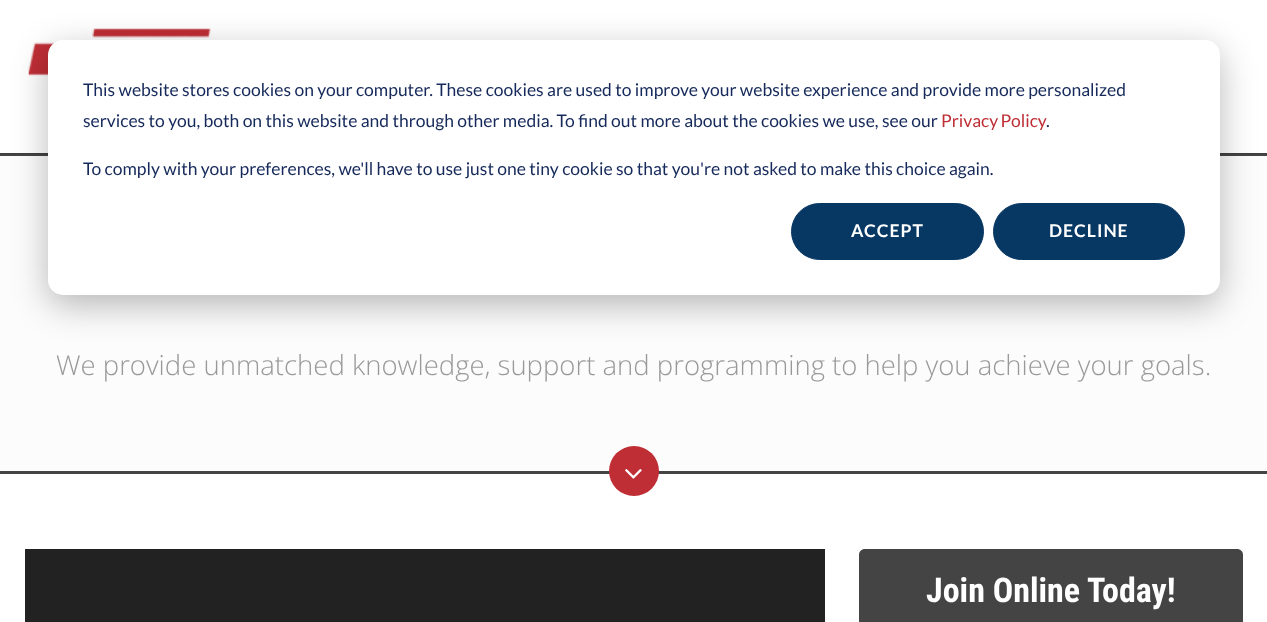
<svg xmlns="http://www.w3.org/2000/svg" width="1267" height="622">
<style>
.a{font:17.5px Lato;fill:#15295a}
.b{font:17.5px Lato;fill:#bf2e35}
.c{font:bold 17.5px Lato;letter-spacing:1px;fill:#fff}
.d{font:300 27.5px Open Sans;fill:#999}
.e{font:bold 34px Roboto Condensed;fill:#fff}
</style>
<rect width="100%" height="100%" fill="#fff"/>
<image href="1.png" x="28" y="28" width="228" height="94"/>
<path fill="#3f3f3f" d="M0 153h1267v1H0z"/>
<path fill="#fcfcfc" d="M0 156h1267v315H0z"/>
<path fill="#444" d="M0 154h1267v2H0z"/>
<rect fill="#00000047" filter="blur(17.5px)" x="48" y="50" width="1172" height="255" rx="15"/>
<rect fill="#fff" x="48" y="40" width="1172" height="255" rx="15"/>
<rect fill="#073763" stroke="#073763" x="791.5" y="203.5" width="192" height="56" rx="28"/>
<rect fill="#073763" stroke="#073763" x="993.5" y="203.5" width="191" height="56" rx="28"/>
<path fill="#444" d="M0 471h1267v3H0z"/>
<circle fill="#bf2e35" cx="634" cy="471" r="25"/>
<image href="2.png" x="625" y="469" width="17" height="10"/>
<path fill="#222" d="M25 549h800v73H25z"/>
<path fill="none" stroke="#eee" d="M869 549.5h364c5 0 9.5 4.5 9.5 9.5v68c0 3-2.5 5.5-5.5 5.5h-372c-3 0-5.5-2.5-5.5-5.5v-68c0-5 4.5-9.5 9.5-9.5z"/>
<path fill="#444" d="M865 549h372c3.5 0 6 2.5 6 6v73h-384v-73c0-3.5 2.5-6 6-6z"/>
<text class="a" x="83" y="96">This website stores cookies on your computer. These cookies are used to improve your website experience and provide more personalized</text>
<text class="a" x="83" y="127">services to you, both on this website and through other media. To find out more about the cookies we use, see our</text>
<text class="b" x="941" y="127" word-spacing="-1">Privacy Policy</text>
<text class="a" x="1046" y="127">.</text>
<text class="a" x="83" y="175">To comply with your preferences, we'll have to use just one tiny cookie so that you're not asked to make this choice again.</text>
<text class="c" x="851" y="237">ACCEPT</text>
<text class="c" x="1049" y="237">DECLINE</text>
<text class="d" x="56" y="375">We provide unmatched knowledge, support and programming to help you achieve your goals.</text>
<text class="e" x="926" y="602">Join Online Today!</text>
</svg>
